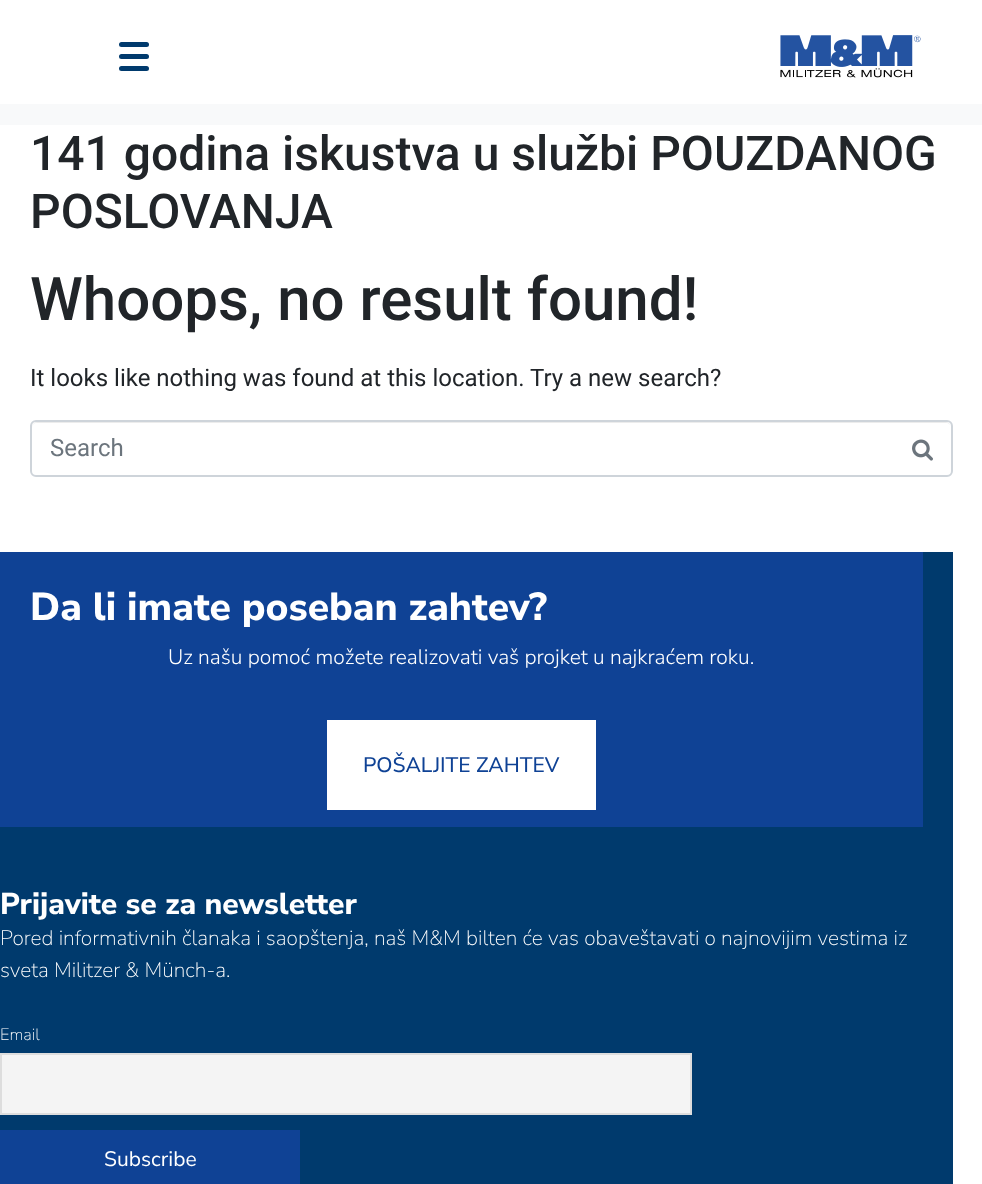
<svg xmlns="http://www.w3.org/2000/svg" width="982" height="1184">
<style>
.a{font:500 48px Roboto;fill:#212529}
.b{font:500 60px Roboto;fill:#212529}
.c{font:24px Roboto;fill:#212529}
.d{font:24px Roboto;fill:#6c757d}
.e{font:800 39px Nunito Sans;fill:#fff}
.f{font:300 21px Nunito Sans;fill:#fff}
.g{font:500 21px Nunito Sans;fill:#0f4295}
.h{font:800 30px Nunito Sans;fill:#fff}
.i{font:200 21px Nunito Sans;fill:#fff}
.j{font:200 16.5px Nunito Sans;fill:#fff}
.k{font:21px Nunito Sans;fill:#fff}
</style>
<rect width="100%" height="100%" fill="#fff"/>
<rect fill="#003a6d" x="119" y="54" width="30" height="5" rx="2.5"/>
<rect fill="#003a6d" x="119" y="42" width="30" height="5" rx="2.5"/>
<rect fill="#003a6d" x="119" y="66" width="30" height="5" rx="2.5"/>
<image href="1.png" x="780" y="35" width="141" height="43"/>
<path fill="#f8f9fa" d="M0 104h982v21H0z"/>
<path fill="#ececec" d="M36 423h910c3 0 5 2 5 5c0-3-2-6-5-6h-909c-3 0-5 3-5 6c0-3 2-5 4-5z"/>
<rect fill="none" stroke="#ced4da" stroke-width="2" x="31" y="421" width="921" height="55" rx="5"/>
<image href="2.png" x="912" y="439" width="21" height="22"/>
<path fill="#003a6d" d="M0 552h953v632H0z"/>
<path fill="#0f4295" d="M0 552h923v275H0z"/>
<path fill="#fff" d="M327 720h269v90H327z"/>
<path fill="#f4f4f4" stroke="#ddd" stroke-width="2" d="M1 1054h690v60H1z"/>
<path fill="#0f4295" d="M0 1130h300v54H0z"/>
<text class="a" x="30" y="170">141 godina iskustva u službi POUZDANOG</text>
<text class="a" x="30" y="228">POSLOVANJA</text>
<text class="b" x="30" y="320">Whoops, no result found!</text>
<text class="c" x="30" y="386">It looks like nothing was found at this location. Try a new search?</text>
<text class="d" x="50" y="456">Search</text>
<text class="e" x="30" y="620">Da li imate poseban zahtev?</text>
<text class="f" x="168" y="664">Uz našu pomoć možete realizovati vaš projket u najkraćem roku.</text>
<text class="g" x="363" y="772">POŠALJITE ZAHTEV</text>
<text class="h" x="0" y="914">Prijavite se za newsletter</text>
<text class="i" x="0" y="945">Pored informativnih članaka i saopštenja, naš M&amp;M bilten će vas obaveštavati o najnovijim vestima iz</text>
<text class="i" x="0" y="977">sveta Militzer &amp; Münch-a.</text>
<text class="j" x="0" y="1040">Email</text>
<text class="k" x="104" y="1166">Subscribe</text>
</svg>
